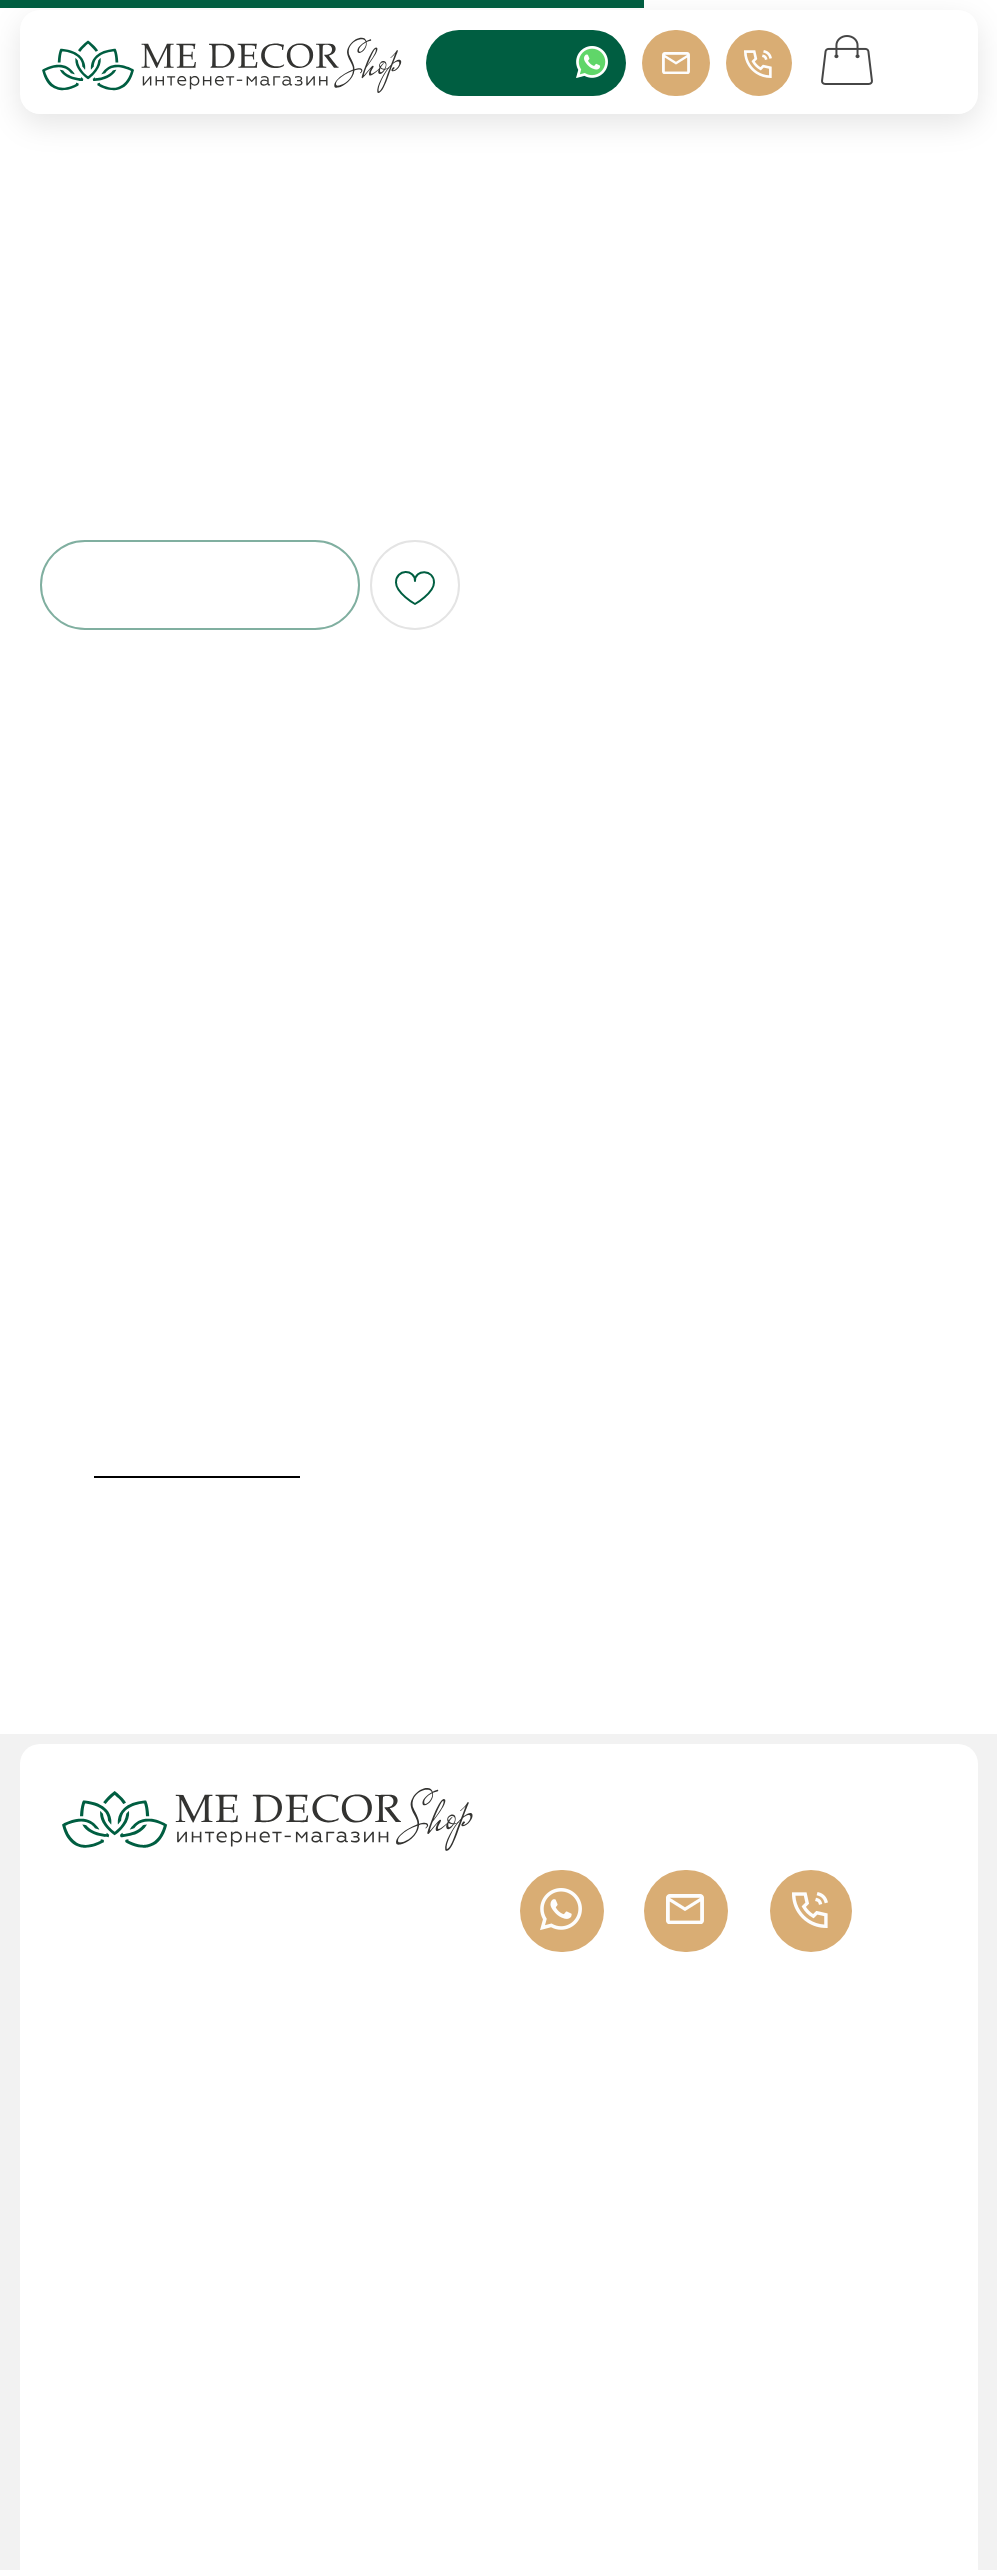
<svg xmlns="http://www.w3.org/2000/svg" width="997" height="2570">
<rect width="100%" height="100%" fill="#fff"/>
<path fill="#005e41" d="M0 0h644v8H0z"/>
<rect fill="#0000001a" filter="blur(15px)" x="20" y="20" width="958" height="104" rx="20"/>
<rect fill="#fff" x="20" y="10" width="958" height="104" rx="20"/>
<image href="1.png" x="42" y="37" width="360" height="56"/>
<rect fill="#005e41" x="426" y="30" width="200" height="66" rx="33"/>
<rect fill="#d9ad74" x="642" y="30" width="68" height="66" rx="33"/>
<circle fill="#d9ad74" cx="759" cy="63" r="33"/>
<image href="2.png" x="821" y="35" width="52" height="50"/>
<image href="3.png" x="576" y="46" width="32" height="32"/>
<image href="4.png" x="662" y="52" width="28" height="22"/>
<image href="5.png" x="744" y="50" width="28" height="28"/>
<rect fill="none" stroke="#80afa0" stroke-width="2" x="41" y="541" width="318" height="88" rx="44"/>
<circle fill="none" stroke="#e4e4e4" stroke-width="2" cx="415" cy="585" r="44"/>
<path fill="none" stroke="#005e41" stroke-width="2" stroke-linejoin="round" d="M434 582.5c0 10.5-19 21.5-19 21.5c0 0-19-11-19-21.5c0-14 19-13.5 19-1.5c0-12 19-12 19 1.5z"/>
<path fill="#000" d="M94 1476h206v2H94z"/>
<path fill="#f2f2f2" d="M0 1734h997v836H0z"/>
<rect fill="#fff" x="20" y="1744" width="958" height="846" rx="20"/>
<image href="6.png" x="62" y="1788" width="411" height="63"/>
<rect fill="#d9ad74" x="520" y="1870" width="84" height="82" rx="41"/>
<rect fill="#d9ad74" x="644" y="1870" width="84" height="82" rx="41"/>
<circle fill="#d9ad74" cx="811" cy="1911" r="41"/>
<image href="7.png" x="540" y="1888" width="42" height="43"/>
<image href="8.png" x="666" y="1894" width="38" height="30"/>
<image href="9.png" x="792" y="1892" width="36" height="36"/>
</svg>
